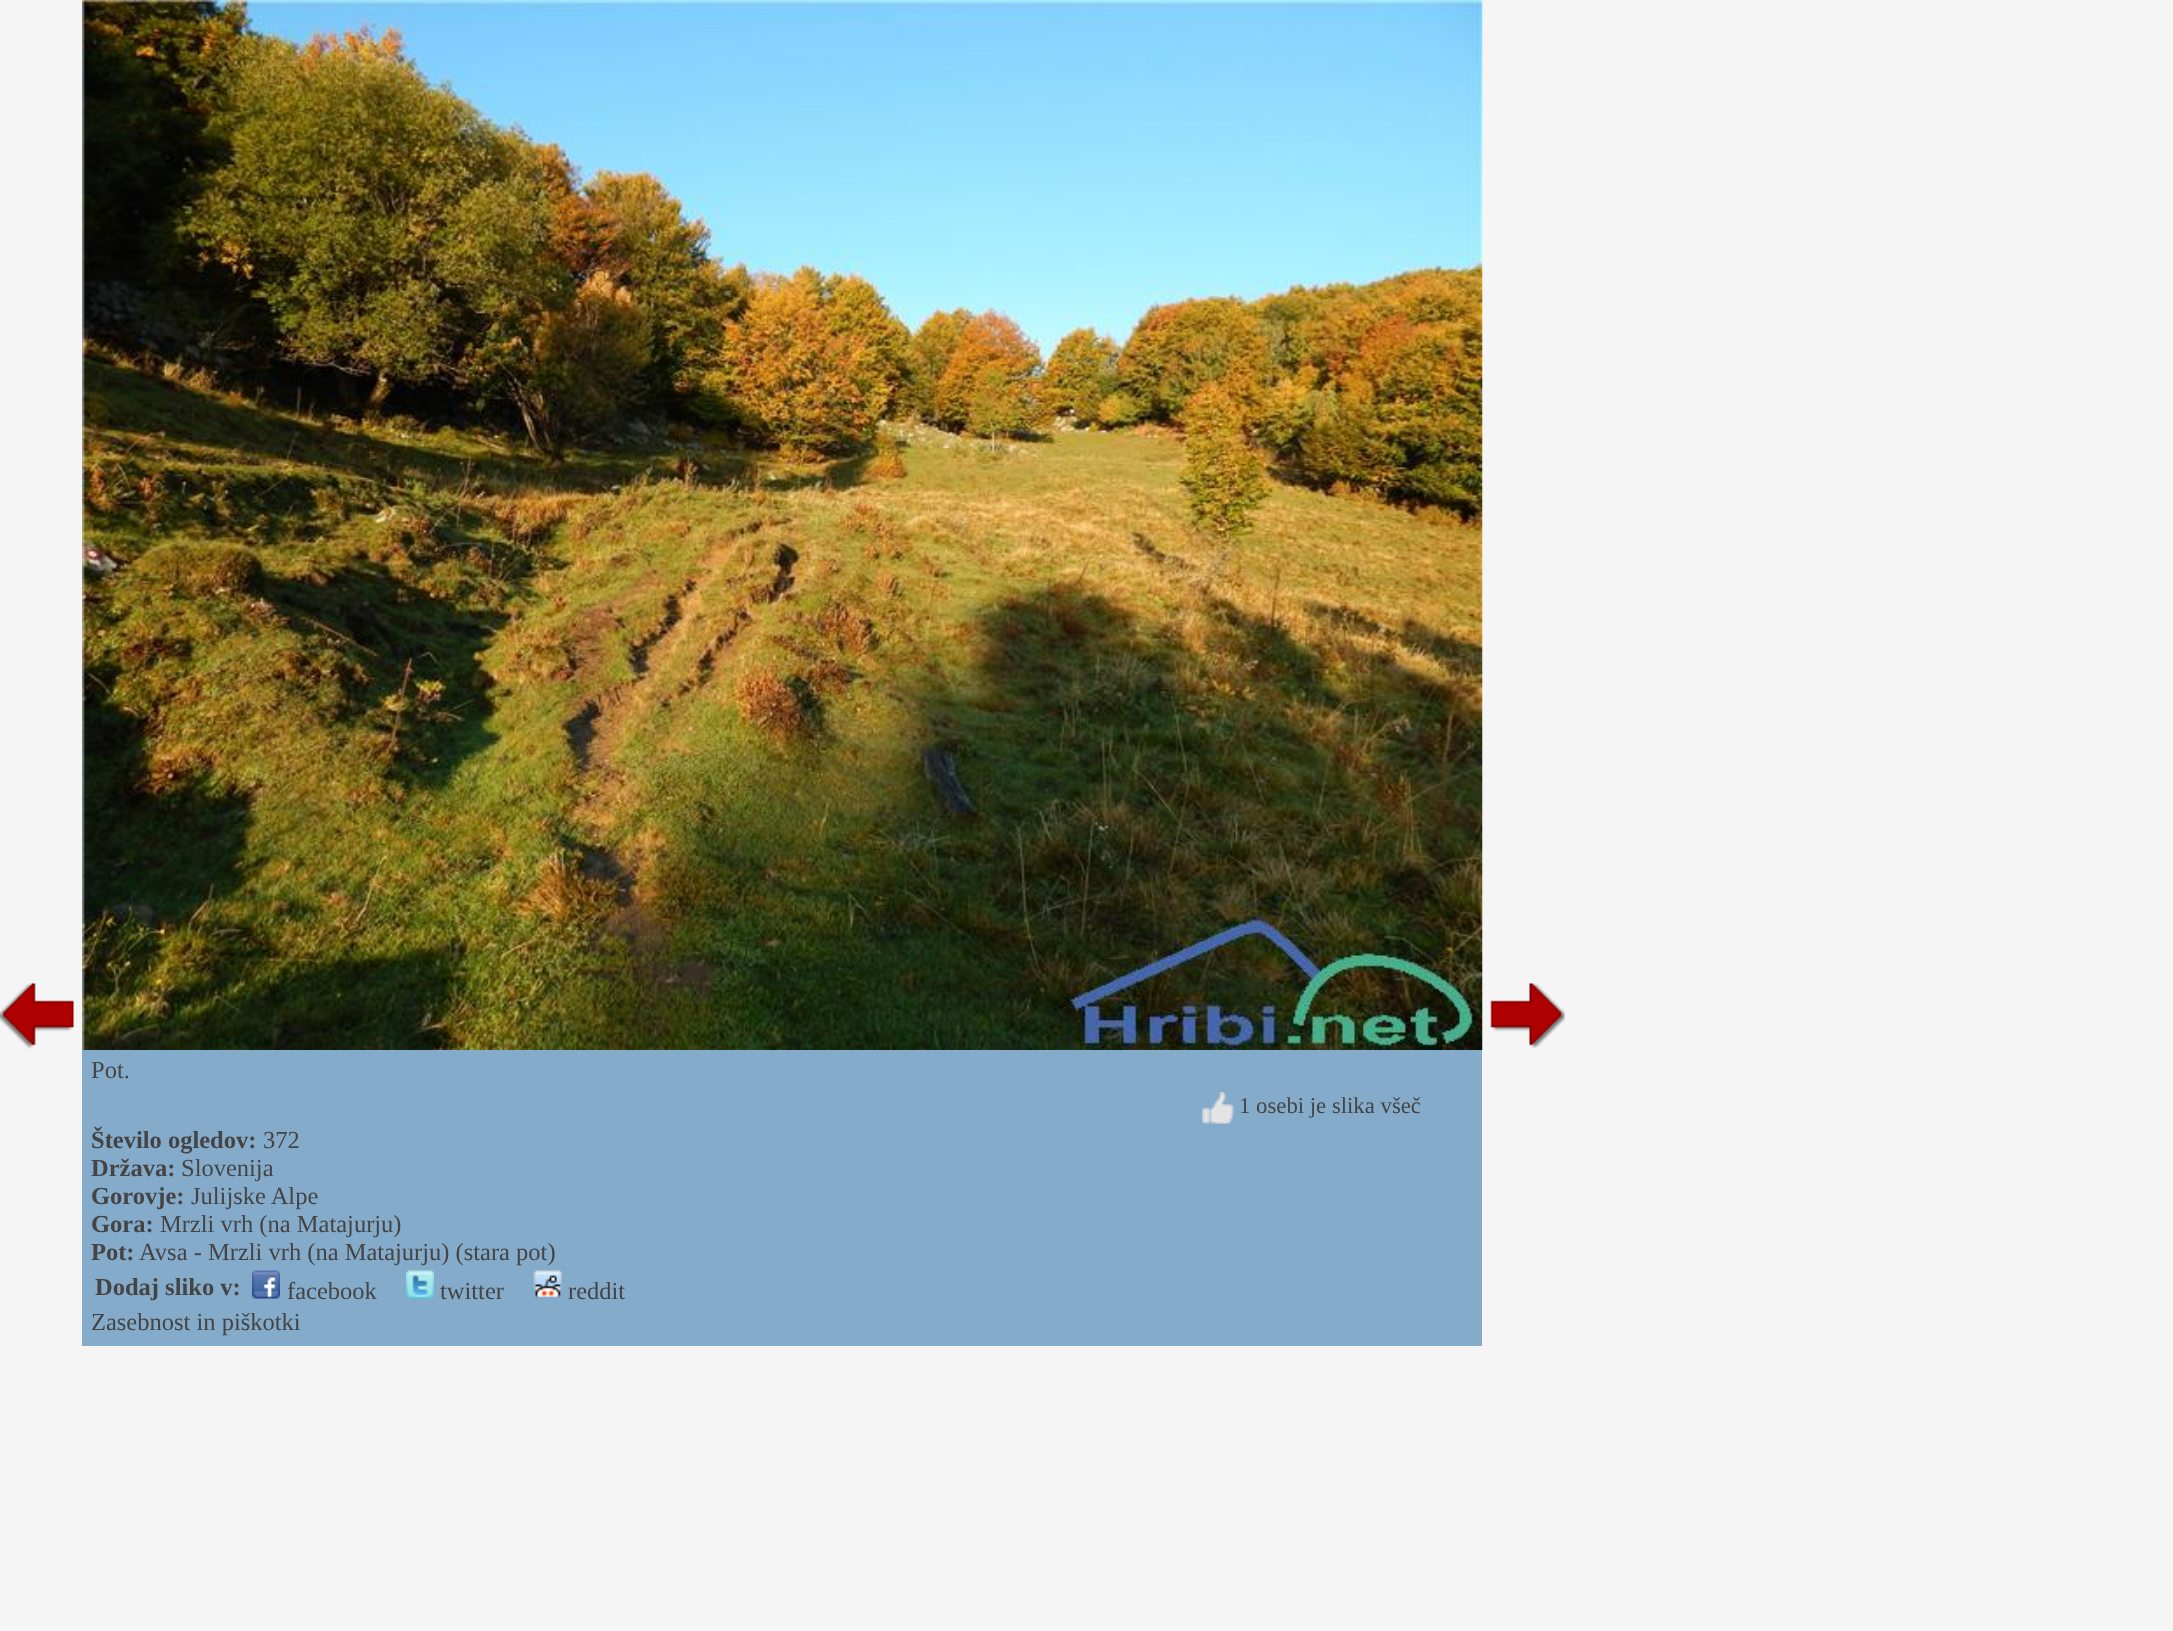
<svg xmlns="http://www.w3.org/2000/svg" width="2173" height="1631">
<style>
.a{font:24.5px Liberation Serif;fill:#444}
.b{font:22.75px Liberation Serif;fill:#444}
.c{font:bold 24.5px Liberation Serif;fill:#444}
</style>
<rect width="100%" height="100%" fill="#f5f5f5"/>
<image href="1.png" x="0" y="983" width="74" height="66"/>
<image href="2.png" x="1490" y="983" width="75" height="66"/>
<path fill="#85abca" d="M82 0h1400v1346H82z"/>
<image href="3.png" x="82" y="0" width="1401" height="1050"/>
<image href="4.png" x="1202" y="1092" width="32" height="32"/>
<image href="5.png" x="252" y="1270" width="28" height="29"/>
<image href="6.png" x="406" y="1270" width="28" height="29"/>
<image href="7.png" x="533" y="1270" width="29" height="29"/>
<text class="a" x="91" y="1078">Pot.</text>
<text class="b" x="1239" y="1113">1 osebi je slika všeč</text>
<text class="c" x="91" y="1148">Število ogledov:</text>
<text class="a" x="263" y="1148">372</text>
<text class="c" x="91" y="1176">Država:</text>
<text class="a" x="181" y="1176">Slovenija</text>
<text class="c" x="91" y="1204">Gorovje:</text>
<text class="a" x="191" y="1204">Julijske Alpe</text>
<text class="c" x="91" y="1232">Gora:</text>
<text class="a" x="160" y="1232">Mrzli vrh (na Matajurju)</text>
<text class="c" x="91" y="1260">Pot:</text>
<text class="a" x="139" y="1260">Avsa - Mrzli vrh (na Matajurju) (stara pot)</text>
<text class="c" x="95" y="1295">Dodaj sliko v:</text>
<text class="a" x="287" y="1299">facebook</text>
<text class="a" x="440" y="1299">twitter</text>
<text class="a" x="568" y="1299">reddit</text>
<text class="a" x="91" y="1330">Zasebnost in piškotki</text>
</svg>
